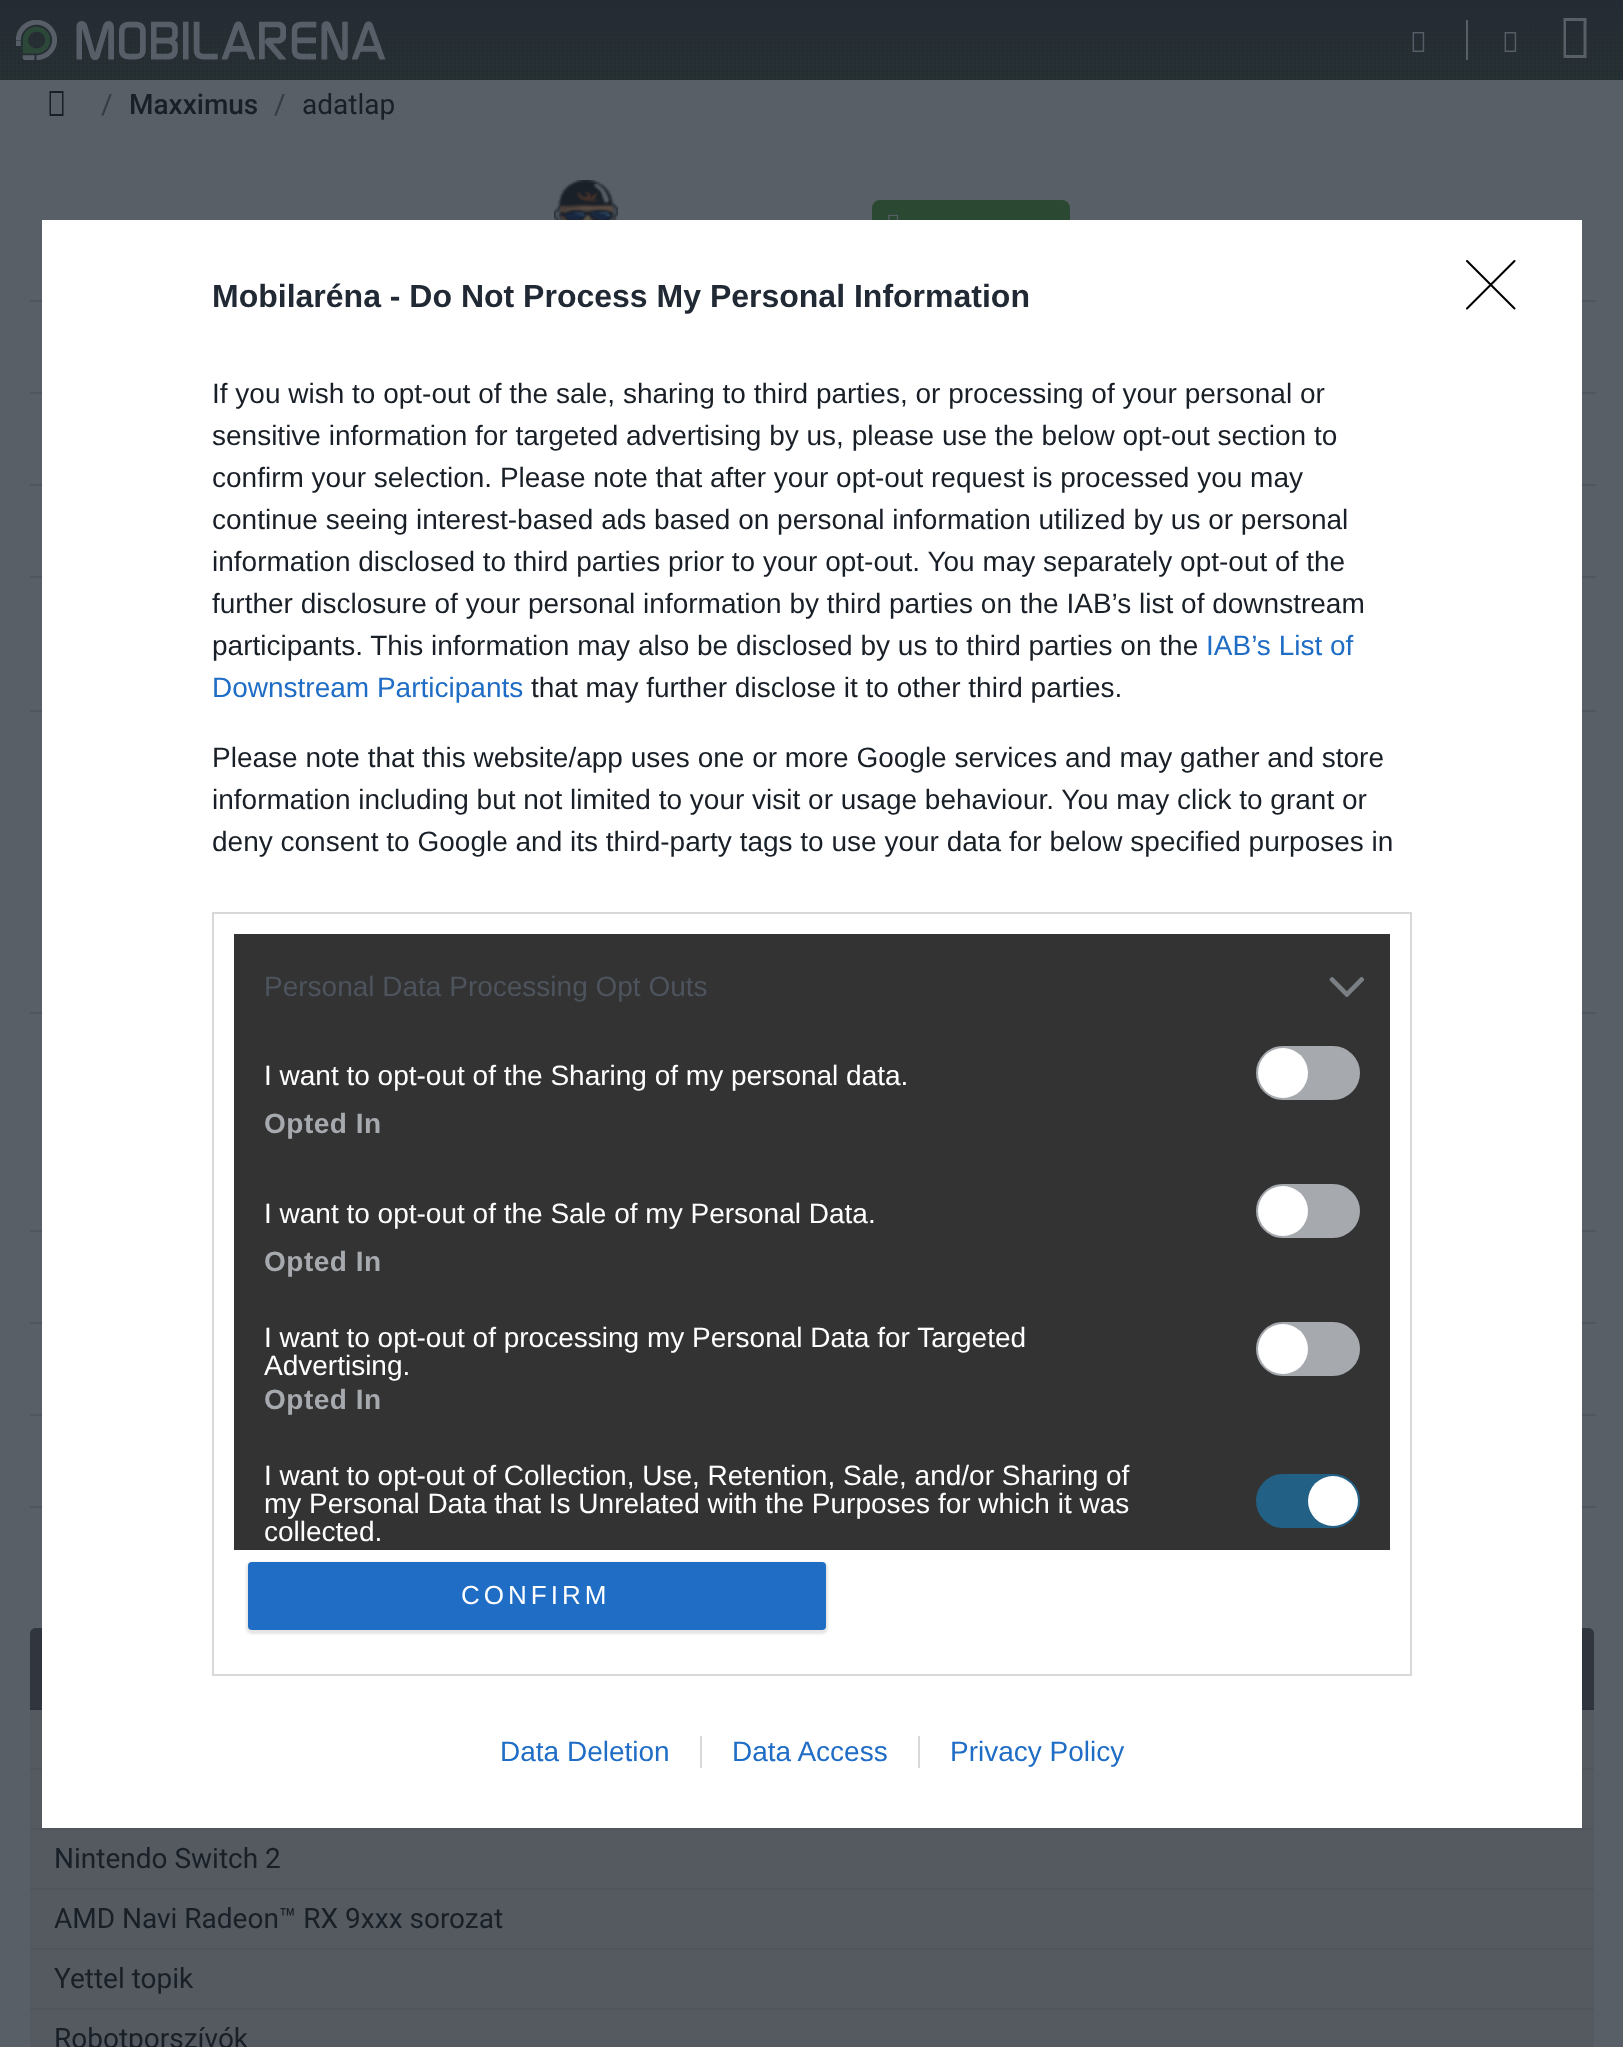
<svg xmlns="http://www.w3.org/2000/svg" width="1623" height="2047">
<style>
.a{font:28px Roboto;fill:#343c46}
.b{font:500 28px Roboto;fill:#191f27}
.c{font:28px Roboto;fill:#191f27}
.d{font:bold 32px Liberation Sans;fill:#212934}
.e{font:28px Liberation Sans;fill:#191f27}
.f{font:28px Liberation Sans;fill:#206dc5}
.g{font:28px Liberation Sans;fill:#4d545d}
.h{font:28px Liberation Sans;fill:#fff}
.i{font:bold 28px Liberation Sans;letter-spacing:0.5px;fill:#a6a9ae}
.j{font:26px Liberation Sans;letter-spacing:4px;fill:#fff}
</style>
<rect width="100%" height="100%" fill="#595f67"/>
<image href="1.png" x="0" y="0" width="1623" height="80"/>
<image href="2.png" x="16" y="20" width="370" height="40"/>
<image href="3.png" x="1412" y="32" width="13" height="20"/>
<path fill="#595f67" d="M1466 20h2v40H1466z"/>
<image href="3.png" x="1504" y="32" width="13" height="20"/>
<path fill="#595f67" d="M1563.5 58v-40h23v40zm2.5-3h17.5v-34h-17.5z"/>
<path fill="#191f27" d="M49.5 116v-25h14v25zm1.5-2h11v-21h-11z"/>
<image href="4.png" x="554" y="180" width="64" height="40"/>
<rect fill="#2b4832" stroke="#2b4832" stroke-width="2" x="873" y="201" width="196" height="46" rx="7"/>
<image href="5.png" x="888" y="214" width="11" height="6"/>
<path fill="#50565e" d="M30 300h12v2H30z"/>
<path fill="#50565e" d="M1582 300h14v2H1582z"/>
<path fill="#50565e" d="M30 392h12v2H30z"/>
<path fill="#50565e" d="M1582 392h14v2H1582z"/>
<path fill="#50565e" d="M30 484h12v2H30z"/>
<path fill="#50565e" d="M1582 484h14v2H1582z"/>
<path fill="#50565e" d="M30 576h12v2H30z"/>
<path fill="#50565e" d="M1582 576h14v2H1582z"/>
<path fill="#50565e" d="M30 710h12v2H30z"/>
<path fill="#50565e" d="M1582 710h14v2H1582z"/>
<path fill="#50565e" d="M30 1012h12v2H30z"/>
<path fill="#50565e" d="M1582 1012h14v2H1582z"/>
<path fill="#50565e" d="M30 1230h12v2H30z"/>
<path fill="#50565e" d="M1582 1230h14v2H1582z"/>
<path fill="#50565e" d="M30 1322h12v2H30z"/>
<path fill="#50565e" d="M1582 1322h14v2H1582z"/>
<path fill="#50565e" d="M30 1414h12v2H30z"/>
<path fill="#50565e" d="M1582 1414h14v2H1582z"/>
<path fill="#50565e" d="M30 1506h12v2H30z"/>
<path fill="#50565e" d="M1582 1506h14v2H1582z"/>
<rect fill="#545a60" x="30" y="1628" width="1564" height="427" rx="8"/>
<path fill="#31363e" d="M36 1628h1552c3.5 0 6 2.5 6 6v76h-1564v-76c0-3.5 2.5-6 6-6z"/>
<path fill="#2e333b" d="M30 1708h1564v2H30z"/>
<path fill="#50565e" d="M30 1768h1564v2H30z"/>
<path fill="#50565e" d="M30 1828h1564v2H30z"/>
<path fill="#50565e" d="M30 1888h1564v2H30z"/>
<path fill="#50565e" d="M30 1948h1564v2H30z"/>
<path fill="#50565e" d="M30 2008h1564v2H30z"/>
<path fill="#fff" d="M42 220h1540v1608H42z"/>
<path fill="none" stroke="#d8d8d8" stroke-width="2" d="M213 913h1198v762H213z"/>
<path fill="#333" d="M234 934h1156v616H234z"/>
<image href="6.png" x="1329" y="977" width="36" height="20"/>
<rect fill="#a6a9ae" stroke="#a6a9ae" stroke-width="2" x="1257" y="1047" width="102" height="52" rx="26"/>
<circle fill="#fff" cx="1283" cy="1073" r="25"/>
<rect fill="#a6a9ae" stroke="#a6a9ae" stroke-width="2" x="1257" y="1185" width="102" height="52" rx="26"/>
<circle fill="#fff" cx="1283" cy="1211" r="25"/>
<rect fill="#a6a9ae" stroke="#a6a9ae" stroke-width="2" x="1257" y="1323" width="102" height="52" rx="26"/>
<circle fill="#fff" cx="1283" cy="1349" r="25"/>
<rect fill="#236085" stroke="#236085" stroke-width="2" x="1257" y="1475" width="102" height="52" rx="26"/>
<circle fill="#fff" cx="1333" cy="1501" r="25"/>
<rect fill="#0000001a" filter="blur(1px)" x="246" y="1562" width="582" height="72" rx="6"/>
<rect fill="#206dc5" x="248" y="1562" width="578" height="68" rx="4"/>
<path fill="none" stroke="#000" stroke-width="2.1" stroke-linecap="round" stroke-linejoin="round" d="M1467 261l47.5 47.5m0-47.5l-47.5 47.5"/>
<path fill="#d8d8d8" d="M700 1736h2v32H700z"/>
<path fill="#d8d8d8" d="M918 1736h2v32H918z"/>
<text class="a" x="101" y="114">/</text>
<text class="b" x="129" y="114">Maxximus</text>
<text class="a" x="274" y="114">/</text>
<text class="c" x="302" y="114">adatlap</text>
<text class="c" x="54" y="1868">Nintendo Switch 2</text>
<text class="c" x="54" y="1928">AMD Navi Radeon™ RX 9xxx sorozat</text>
<text class="c" x="54" y="1988">Yettel topik</text>
<text class="c" x="54" y="2048">Robotporszívók</text>
<text class="d" x="212" y="307">Mobilaréna - Do Not Process My Personal Information</text>
<text class="e" x="212" y="403">If you wish to opt-out of the sale, sharing to third parties, or processing of your personal or</text>
<text class="e" x="212" y="445">sensitive information for targeted advertising by us, please use the below opt-out section to</text>
<text class="e" x="212" y="487">confirm your selection. Please note that after your opt-out request is processed you may</text>
<text class="e" x="212" y="529">continue seeing interest-based ads based on personal information utilized by us or personal</text>
<text class="e" x="212" y="571">information disclosed to third parties prior to your opt-out. You may separately opt-out of the</text>
<text class="e" x="212" y="613">further disclosure of your personal information by third parties on the IAB’s list of downstream</text>
<text class="e" x="212" y="655">participants. This information may also be disclosed by us to third parties on the</text>
<text class="f" x="1206" y="655">IAB’s List of</text>
<text class="f" x="212" y="697">Downstream Participants</text>
<text class="e" x="531" y="697">that may further disclose it to other third parties.</text>
<text class="e" x="212" y="767">Please note that this website/app uses one or more Google services and may gather and store</text>
<text class="e" x="212" y="809">information including but not limited to your visit or usage behaviour. You may click to grant or</text>
<text class="e" x="212" y="851">deny consent to Google and its third-party tags to use your data for below specified purposes in</text>
<text class="g" x="264" y="996">Personal Data Processing Opt Outs</text>
<text class="h" x="264" y="1085">I want to opt-out of the Sharing of my personal data.</text>
<text class="i" x="264" y="1133">Opted In</text>
<text class="h" x="264" y="1223">I want to opt-out of the Sale of my Personal Data.</text>
<text class="i" x="264" y="1271">Opted In</text>
<text class="h" x="264" y="1347">I want to opt-out of processing my Personal Data for Targeted</text>
<text class="h" x="264" y="1375">Advertising.</text>
<text class="i" x="264" y="1409">Opted In</text>
<text class="h" x="264" y="1485">I want to opt-out of Collection, Use, Retention, Sale, and/or Sharing of</text>
<text class="h" x="264" y="1513">my Personal Data that Is Unrelated with the Purposes for which it was</text>
<text class="h" x="264" y="1541">collected.</text>
<text class="j" x="461" y="1604">CONFIRM</text>
<text class="f" x="500" y="1761">Data Deletion</text>
<text class="f" x="732" y="1761">Data Access</text>
<text class="f" x="950" y="1761">Privacy Policy</text>
</svg>
